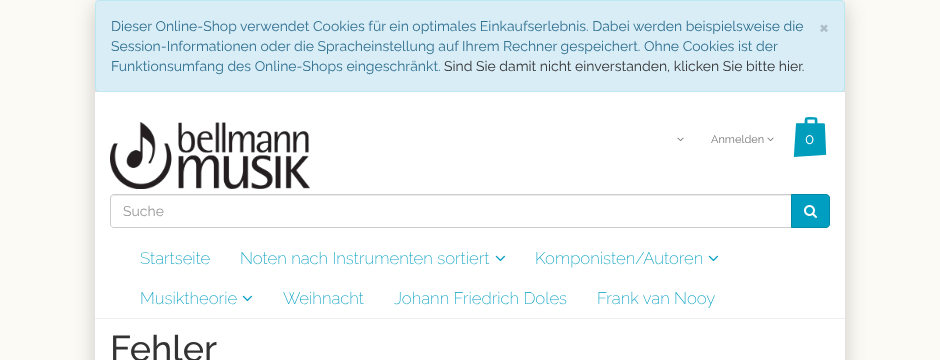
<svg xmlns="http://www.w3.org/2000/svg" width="940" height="360">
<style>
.a{font:14px Raleway;fill:#31708f}
.b{font:bold 21px Raleway;fill:#aebec6}
.c{font:14px Raleway;fill:#333}
.d{font:11px Raleway;fill:#777}
.e{font:15px Raleway;fill:#fff}
.f{font:14px Raleway;fill:#999}
.g{font:200 16.75px Raleway;fill:#009ec0}
.h{font:500 36px Raleway;fill:#333}
</style>
<rect width="100%" height="100%" fill="#fbfaf5"/>
<path fill="#00000033" filter="blur(10px)" d="M95 5h750v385H95z"/>
<rect fill="#d9edf7" stroke="#bce8f1" x="95.5" y="0.5" width="749" height="91" rx="3.5"/>
<path fill="#fff" d="M95 92h750v226H95z"/>
<image href="1.png" x="110" y="122" width="200" height="67"/>
<image href="2.png" x="677" y="137" width="7" height="5"/>
<image href="2.png" x="767" y="137" width="7" height="5"/>
<image href="3.png" x="793" y="117" width="34" height="40"/>
<path fill="#ececec" d="M114 196h677v-1h-677c-2 0-3 1-3 3v1c0-2 1-3 3-3z"/>
<path fill="none" stroke="#ccc" d="M114 194.5h677.5v33h-677.5c-2 0-3.5-1.5-3.5-3.5v-26c0-2 1.5-3.5 3.5-3.5z"/>
<path fill="#009ec0" stroke="#0089a7" d="M791.5 194.5h34.5c2 0 3.5 1.5 3.5 3.5v26c0 2-1.5 3.5-3.5 3.5h-34.5z"/>
<image href="4.png" x="804" y="205" width="13" height="13"/>
<path fill="#eee" d="M95 318h750v1H95z"/>
<image href="5.png" x="495" y="255" width="10" height="7"/>
<image href="5.png" x="708" y="255" width="10" height="7"/>
<image href="5.png" x="242" y="295" width="10" height="7"/>
<path fill="#fff" d="M95 319h750v41H95z"/>
<text class="a" x="111" y="31">Dieser Online-Shop verwendet Cookies für ein optimales Einkaufserlebnis. Dabei werden beispielsweise die</text>
<text class="b" x="819" y="34">×</text>
<text class="a" x="111" y="51">Session-Informationen oder die Spracheinstellung auf Ihrem Rechner gespeichert. Ohne Cookies ist der</text>
<text class="a" x="111" y="71">Funktionsumfang des Online-Shops eingeschränkt.</text>
<text class="c" x="444" y="71">Sind Sie damit nicht einverstanden, klicken Sie bitte hier.</text>
<text class="d" x="711" y="143">Anmelden</text>
<text class="e" x="805" y="144">0</text>
<text class="f" x="123" y="216">Suche</text>
<text class="g" x="140" y="264">Startseite</text>
<text class="g" x="240" y="264">Noten nach Instrumenten sortiert</text>
<text class="g" x="535" y="264">Komponisten/Autoren</text>
<text class="g" x="140" y="304">Musiktheorie</text>
<text class="g" x="283" y="304">Weihnacht</text>
<text class="g" x="394" y="304">Johann Friedrich Doles</text>
<text class="g" x="597" y="304">Frank van Nooy</text>
<text class="h" x="110" y="361">Fehler</text>
</svg>
